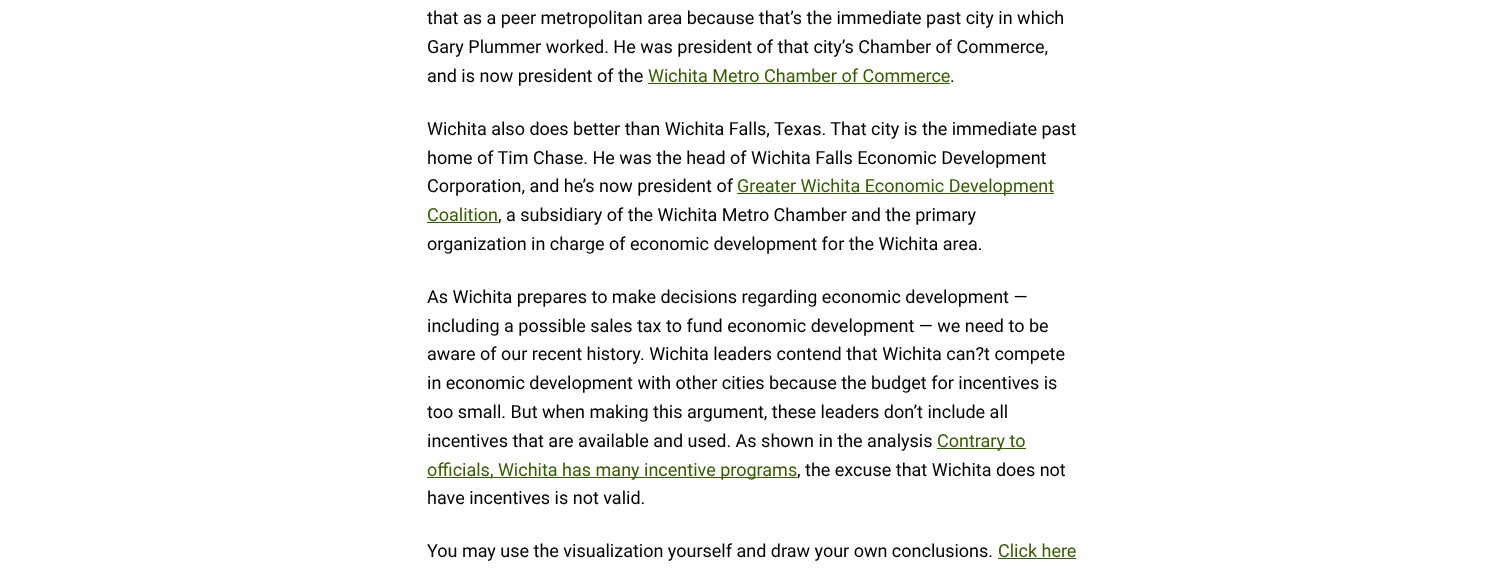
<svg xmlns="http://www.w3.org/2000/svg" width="1504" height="573">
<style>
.a{font:18px Roboto;fill:#000}
.b{font:18px Roboto;fill:#345c00}
</style>
<rect width="100%" height="100%" fill="#fff"/>
<path fill="#345c00" d="M648 83h302v1H648z"/>
<path fill="#345c00" d="M737 193h317v1H737z"/>
<path fill="#345c00" d="M427 222h71v1H427z"/>
<path fill="#345c00" d="M937 448h89v1H937z"/>
<path fill="#345c00" d="M427 477h370v1H427z"/>
<path fill="#345c00" d="M998 558h78v1H998z"/>
<text class="a" x="427" y="24">that as a peer metropolitan area because that’s the immediate past city in which</text>
<text class="a" x="427" y="53">Gary Plummer worked. He was president of that city’s Chamber of Commerce,</text>
<text class="a" x="427" y="82">and is now president of the</text>
<text class="b" x="648" y="82">Wichita Metro Chamber of Commerce</text>
<text class="a" x="950" y="82">.</text>
<text class="a" x="427" y="135">Wichita also does better than Wichita Falls, Texas. That city is the immediate past</text>
<text class="a" x="427" y="164">home of Tim Chase. He was the head of Wichita Falls Economic Development</text>
<text class="a" x="427" y="192">Corporation, and he’s now president of</text>
<text class="b" x="737" y="192">Greater Wichita Economic Development</text>
<text class="b" x="427" y="221">Coalition</text>
<text class="a" x="498" y="221">, a subsidiary of the Wichita Metro Chamber and the primary</text>
<text class="a" x="427" y="250">organization in charge of economic development for the Wichita area.</text>
<text class="a" x="427" y="303">As Wichita prepares to make decisions regarding economic development —</text>
<text class="a" x="427" y="332">including a possible sales tax to fund economic development — we need to be</text>
<text class="a" x="427" y="360">aware of our recent history. Wichita leaders contend that Wichita can?t compete</text>
<text class="a" x="427" y="389">in economic development with other cities because the budget for incentives is</text>
<text class="a" x="427" y="418">too small. But when making this argument, these leaders don’t include all</text>
<text class="a" x="427" y="447">incentives that are available and used. As shown in the analysis</text>
<text class="b" x="937" y="447">Contrary to</text>
<text class="b" x="427" y="476">officials, Wichita has many incentive programs</text>
<text class="a" x="797" y="476">, the excuse that Wichita does not</text>
<text class="a" x="427" y="504">have incentives is not valid.</text>
<text class="a" x="427" y="557">You may use the visualization yourself and draw your own conclusions.</text>
<text class="b" x="998" y="557">Click here</text>
</svg>
